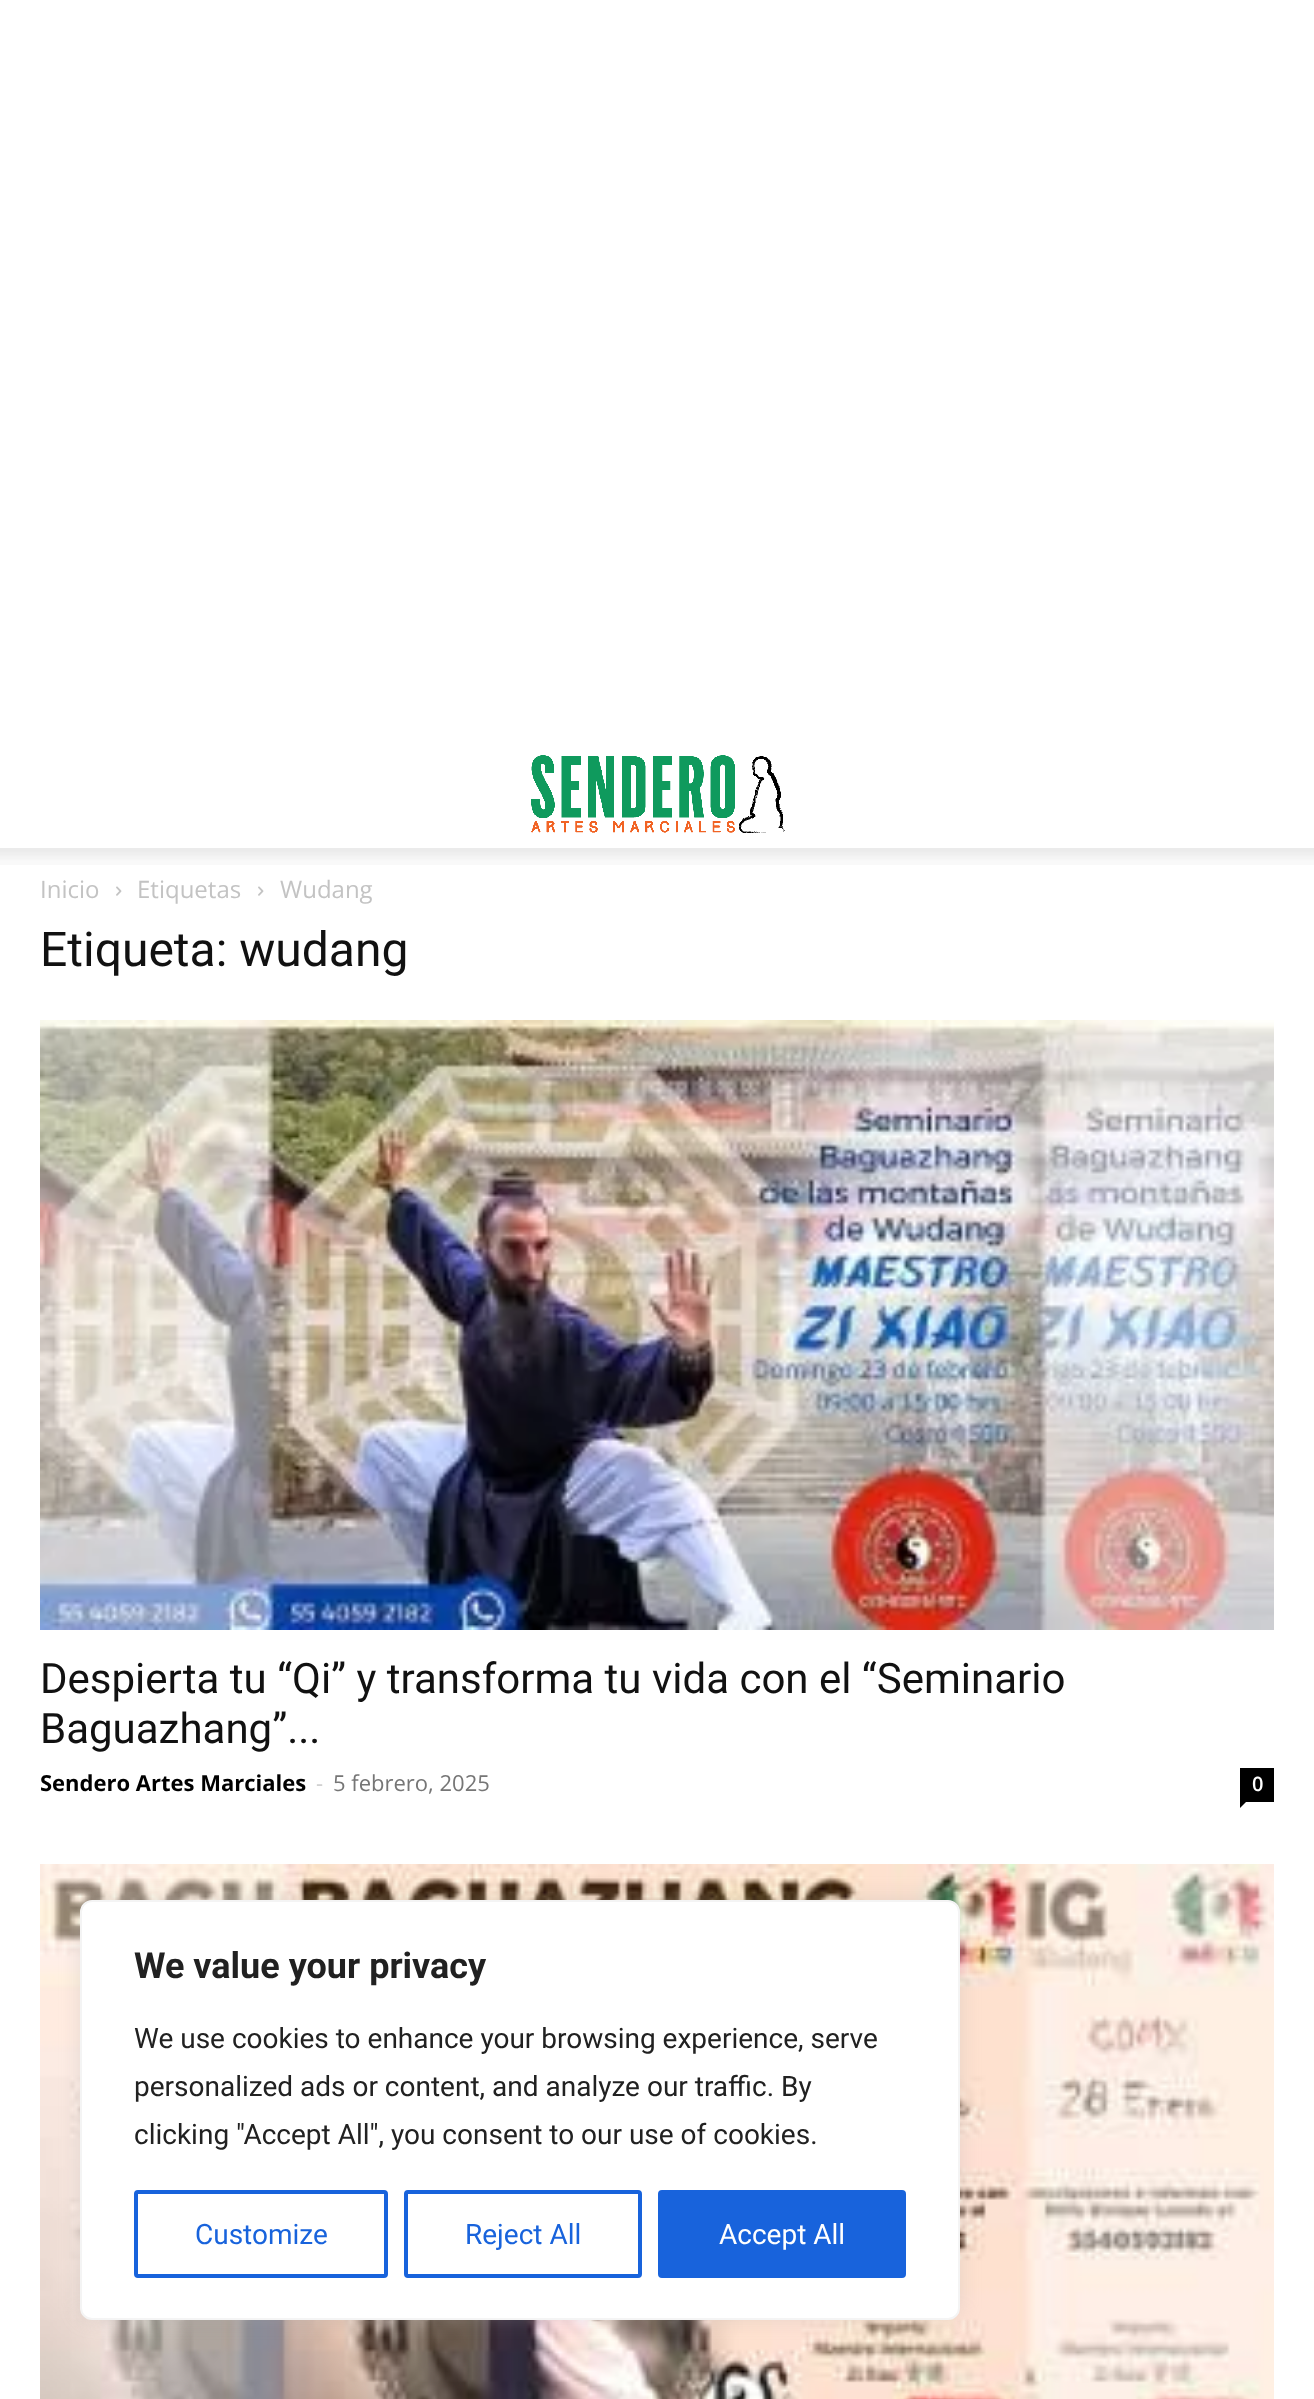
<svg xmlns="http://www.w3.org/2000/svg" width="1314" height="2399">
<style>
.a{font:24px Open Sans;fill:#c3c3c3}
.b{font:48px Roboto;fill:#111}
.c{font:42px Roboto;fill:#111}
.d{font:bold 22px Open Sans;fill:#000}
.e{font:22px Open Sans;fill:#ccc}
.f{font:22px Open Sans;fill:#767676}
.g{font:600 20px Open Sans;fill:#fff}
.h{font:bold 36px Roboto;fill:#212121}
.i{font:28px Roboto;fill:#212121}
.j{font:28px Roboto;fill:#1863dc}
.k{font:28px Roboto;fill:#fff}
</style>
<rect width="100%" height="100%" fill="#fff"/>
<image href="1.png" x="531" y="755" width="254" height="78"/>
<image href="2.png" x="0" y="848" width="1314" height="17"/>
<image href="3.png" x="116" y="886" width="6" height="10"/>
<image href="3.png" x="258" y="886" width="6" height="10"/>
<image href="4.png" x="40" y="1020" width="1234" height="610"/>
<path fill="#000" d="M1240 1768h34v34H1240z"/>
<path fill="#000" d="M1240 1802h6l-6 6z"/>
<image href="5.png" x="40" y="1864" width="1234" height="535"/>
<rect fill="#acabab4d" filter="blur(10px)" x="80" y="1898" width="880" height="420" rx="12"/>
<rect fill="#fff" stroke="#f4f4f4" stroke-width="2" x="81" y="1901" width="878" height="418" rx="11"/>
<rect fill="none" stroke="#1863dc" stroke-width="4" x="136" y="2192" width="250" height="84" rx="2"/>
<rect fill="none" stroke="#1863dc" stroke-width="4" x="406" y="2192" width="234" height="84" rx="2"/>
<rect fill="#1863dc" stroke="#1863dc" stroke-width="4" x="660" y="2192" width="244" height="84" rx="2"/>
<text class="a" x="40" y="898">Inicio</text>
<text class="a" x="137" y="898">Etiquetas</text>
<text class="a" x="280" y="898">Wudang</text>
<text class="b" x="40" y="966">Etiqueta: wudang</text>
<text class="c" x="40" y="1693">Despierta tu “Qi” y transforma tu vida con el “Seminario</text>
<text class="c" x="40" y="1743">Baguazhang”...</text>
<text class="d" x="40" y="1791">Sendero Artes Marciales</text>
<text class="e" x="316" y="1791">-</text>
<text class="f" x="333" y="1791">5 febrero, 2025</text>
<text class="g" x="1252" y="1791">0</text>
<text class="h" x="134" y="1978">We value your privacy</text>
<text class="i" x="134" y="2048">We use cookies to enhance your browsing experience, serve</text>
<text class="i" x="134" y="2096">personalized ads or content, and analyze our traffic. By</text>
<text class="i" x="134" y="2144">clicking "Accept All", you consent to our use of cookies.</text>
<text class="j" x="195" y="2244">Customize</text>
<text class="j" x="465" y="2244">Reject All</text>
<text class="k" x="719" y="2244">Accept All</text>
</svg>
